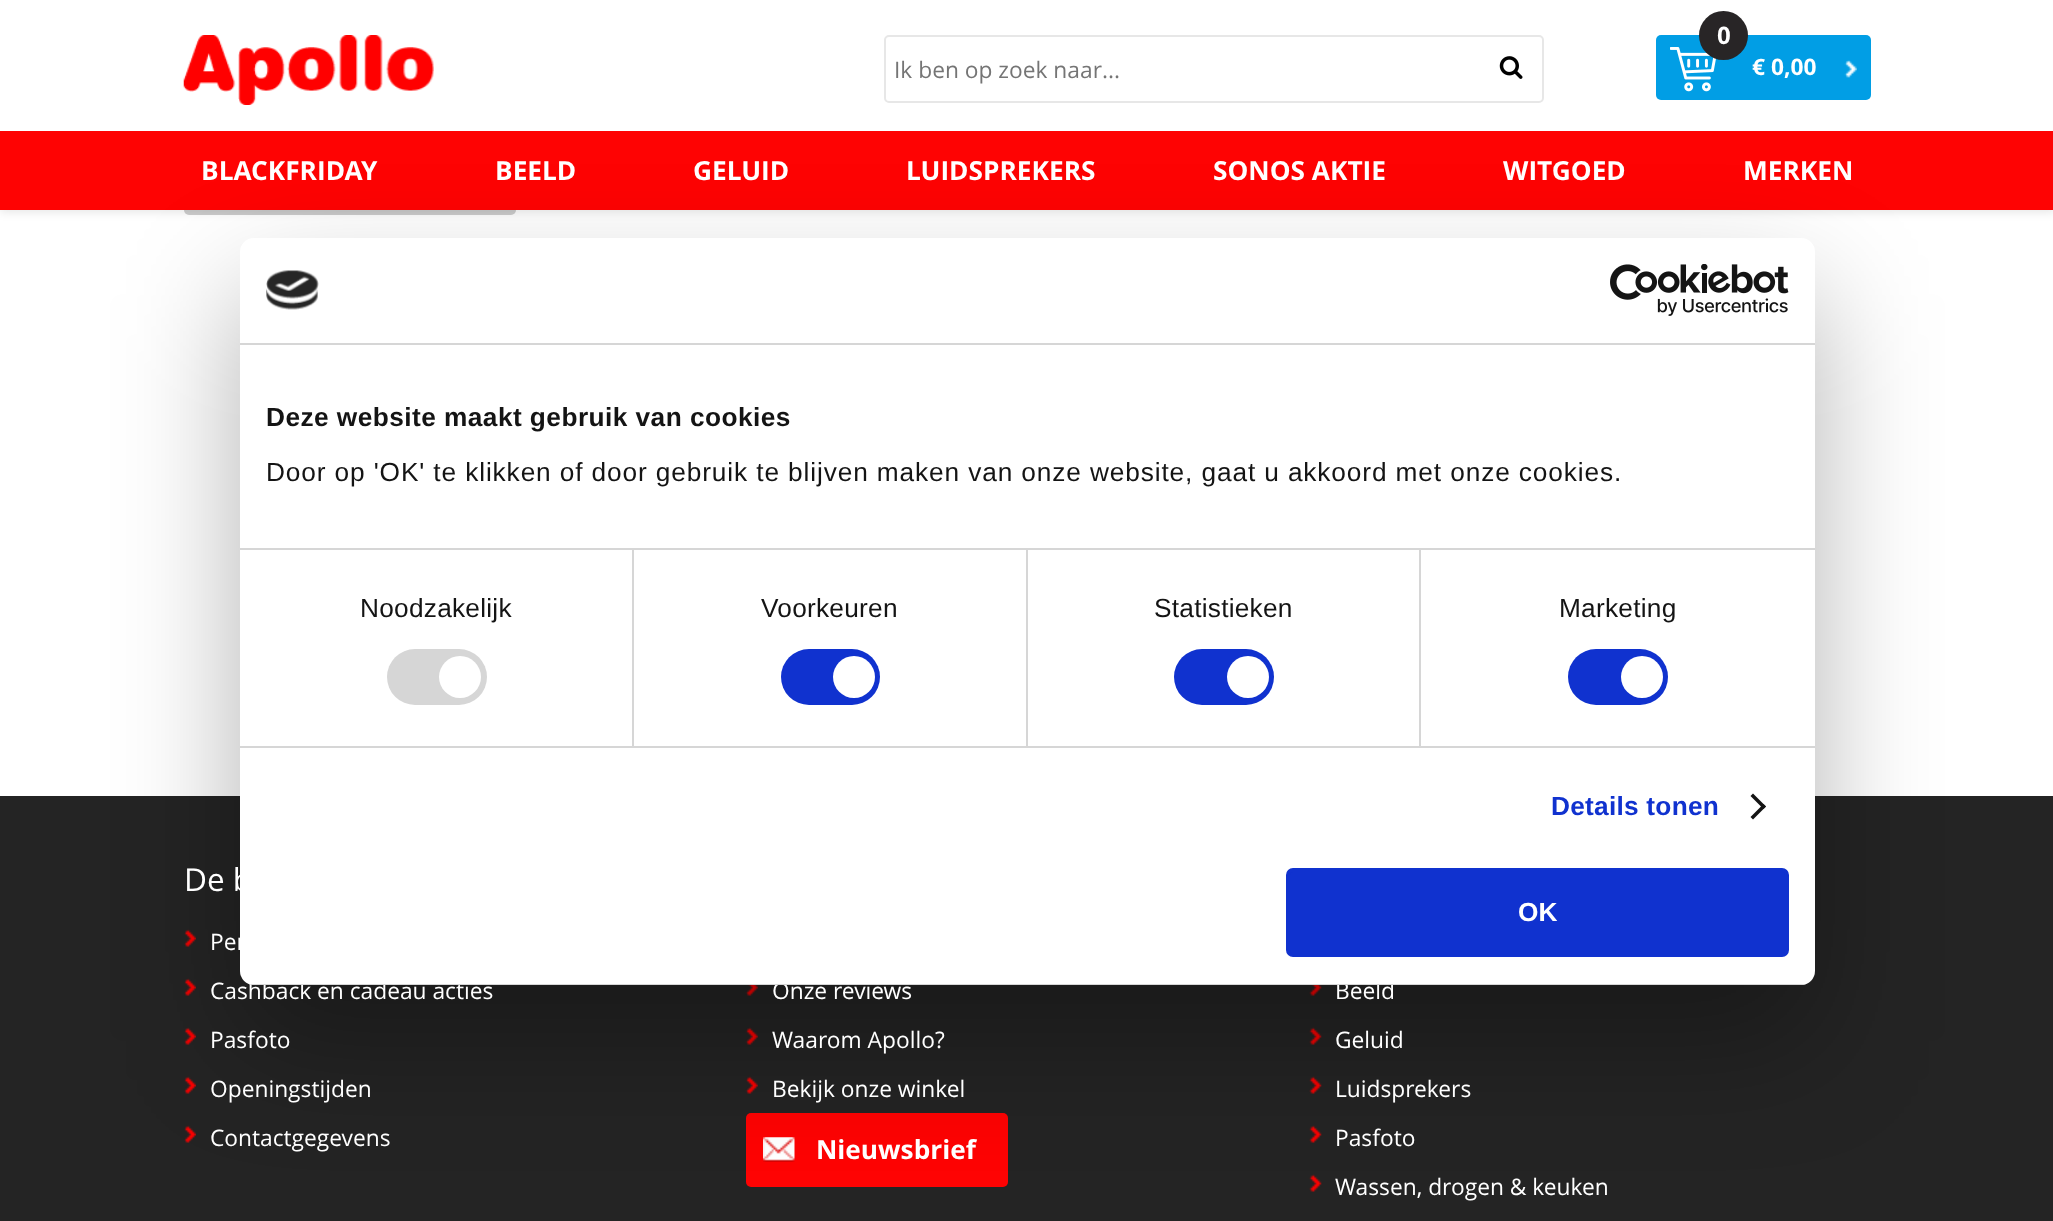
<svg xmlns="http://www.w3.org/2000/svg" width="2053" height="1221">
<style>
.a{font:22.75px Open Sans;fill:#757575}
.b{font:bold 24px Open Sans;fill:#fff}
.c{font:bold 22.75px Open Sans;fill:#fff}
.d{font:bold 26.25px Open Sans;fill:#fff}
.e{font:31.5px Open Sans;fill:#fff}
.f{font:22.75px Open Sans;fill:#fff}
.g{font:bold 26.25px Liberation Sans;letter-spacing:0.45px;fill:#141414}
.h{font:26.25px Liberation Sans;letter-spacing:0.88px;fill:#141414}
.i{font:26.25px Liberation Sans;letter-spacing:0.25px;fill:#141414}
.j{font:bold 26.25px Liberation Sans;letter-spacing:0.25px;fill:#1032cf}
.k{font:bold 26.25px Liberation Sans;fill:#fff}
</style>
<defs>
<clipPath id="clip1"><rect x="240" y="238" width="1575" height="747" rx="14"/></clipPath>
</defs>
<rect width="100%" height="100%" fill="#fff"/>
<rect fill="#cecece" x="184" y="154" width="332" height="61" rx="5"/>
<path fill="#0000001a" filter="blur(5px)" d="M0 2h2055v210H0z"/>
<path fill="#fff" d="M0 0h2053v131H0z"/>
<image href="1.png" x="183" y="35" width="251" height="70"/>
<rect fill="none" stroke="#e7e7e7" stroke-width="2" x="885" y="36" width="658" height="66" rx="4"/>
<image href="2.png" x="1499" y="56" width="24" height="23"/>
<rect fill="#019ee5" x="1656" y="35" width="215" height="65" rx="5"/>
<image href="3.png" x="1670" y="47" width="47" height="45"/>
<circle fill="#282526" cx="1723.5" cy="35.5" r="24.5"/>
<image href="4.png" x="1844" y="60" width="13" height="18"/>
<path fill="#fe0303" d="M0 131h2053v79H0z"/>
<path fill="#242424" d="M0 796h2053v425H0z"/>
<image href="5.png" x="184" y="929" width="12" height="18"/>
<image href="5.png" x="184" y="978" width="12" height="18"/>
<image href="5.png" x="184" y="1027" width="12" height="18"/>
<image href="5.png" x="184" y="1076" width="12" height="18"/>
<image href="5.png" x="184" y="1125" width="12" height="18"/>
<image href="6.png" x="745" y="985" width="13" height="11"/>
<image href="7.png" x="745" y="1027" width="13" height="18"/>
<image href="7.png" x="745" y="1076" width="13" height="18"/>
<rect fill="#fe0303" x="746" y="1113" width="262" height="74" rx="5"/>
<image href="8.png" x="763" y="1137" width="32" height="25"/>
<image href="9.png" x="1309" y="985" width="13" height="11"/>
<image href="10.png" x="1309" y="1027" width="13" height="18"/>
<image href="10.png" x="1309" y="1076" width="13" height="18"/>
<image href="10.png" x="1309" y="1125" width="13" height="18"/>
<image href="10.png" x="1309" y="1174" width="13" height="18"/>
<rect fill="#0000004d" filter="blur(59.5px)" x="240" y="294" width="1575" height="747" rx="14"/>
<rect fill="#fff" x="240" y="238" width="1575" height="747" rx="14"/>
<path fill="#d6d6d6" d="M240 343h1575v2H240z"/>
<image href="11.png" x="266" y="270" width="53" height="40"/>
<image href="12.png" x="1610" y="264" width="179" height="52"/>
<path fill="#d6d6d6" d="M240 548h1575v2H240z"/>
<path fill="#d6d6d6" d="M240 746h1575v2H240z"/>
<path fill="#d6d6d6" d="M632 550h2v196H632z"/>
<rect fill="#d6d6d6" x="387" y="649" width="100" height="56" rx="28"/>
<circle fill="#fff" cx="460" cy="677" r="21"/>
<path fill="#d6d6d6" d="M1026 550h2v196H1026z"/>
<rect fill="#1032cf" x="781" y="649" width="99" height="56" rx="28"/>
<circle fill="#fff" cx="854" cy="677" r="21"/>
<path fill="#d6d6d6" d="M1419 550h2v196H1419z"/>
<rect fill="#1032cf" x="1174" y="649" width="100" height="56" rx="28"/>
<circle fill="#fff" cx="1248" cy="677" r="21"/>
<rect fill="#1032cf" x="1568" y="649" width="100" height="56" rx="28"/>
<circle fill="#fff" cx="1642" cy="677" r="21"/>
<path fill="#141414" d="M1753 793.5l13 13l-2.5 2.5l-13-13z"/>
<path fill="#141414" d="M1763.5 804l2.5 2.5l-13 13l-2.5-2.5z"/>
<rect fill="#1032cf" stroke="#1032cf" stroke-width="4" x="1288" y="870" width="499" height="85" rx="5"/>
<text class="a" x="894" y="78">Ik ben op zoek naar...</text>
<text class="b" x="1717" y="44">0</text>
<text class="c" x="1752" y="75">€ 0,00</text>
<text class="d" x="201" y="180">BLACKFRIDAY</text>
<text class="d" x="495" y="180">BEELD</text>
<text class="d" x="693" y="180">GELUID</text>
<text class="d" x="906" y="180">LUIDSPREKERS</text>
<text class="d" x="1213" y="180">SONOS AKTIE</text>
<text class="d" x="1503" y="180">WITGOED</text>
<text class="d" x="1743" y="180">MERKEN</text>
<text class="e" x="184" y="891">De b</text>
<text class="f" x="210" y="950">Per</text>
<text class="f" x="210" y="999">Cashback en cadeau acties</text>
<text class="f" x="210" y="1048">Pasfoto</text>
<text class="f" x="210" y="1097">Openingstijden</text>
<text class="f" x="210" y="1146">Contactgegevens</text>
<text class="f" x="772" y="999">Onze reviews</text>
<text class="f" x="772" y="1048">Waarom Apollo?</text>
<text class="f" x="772" y="1097">Bekijk onze winkel</text>
<text class="d" x="816" y="1159">Nieuwsbrief</text>
<text class="f" x="1335" y="999">Beeld</text>
<text class="f" x="1335" y="1048">Geluid</text>
<text class="f" x="1335" y="1097">Luidsprekers</text>
<text class="f" x="1335" y="1146">Pasfoto</text>
<text class="f" x="1335" y="1195">Wassen, drogen &amp; keuken</text>
<text class="g" x="266" y="426">Deze website maakt gebruik van cookies</text>
<text class="h" x="266" y="481">Door op 'OK' te klikken of door gebruik te blijven maken van onze website, gaat u akkoord met onze cookies.</text>
<text class="i" x="360" y="617">Noodzakelijk</text>
<text class="i" x="761" y="617">Voorkeuren</text>
<text class="i" x="1154" y="617">Statistieken</text>
<text class="i" x="1559" y="617">Marketing</text>
<text class="j" x="1551" y="815">Details tonen</text>
<g clip-path="url(#clip1)">
<path fill="#d6d6d6" d="M249 984h1557v1H249z"/>
</g>
<text class="k" x="1518" y="921">OK</text>
</svg>
